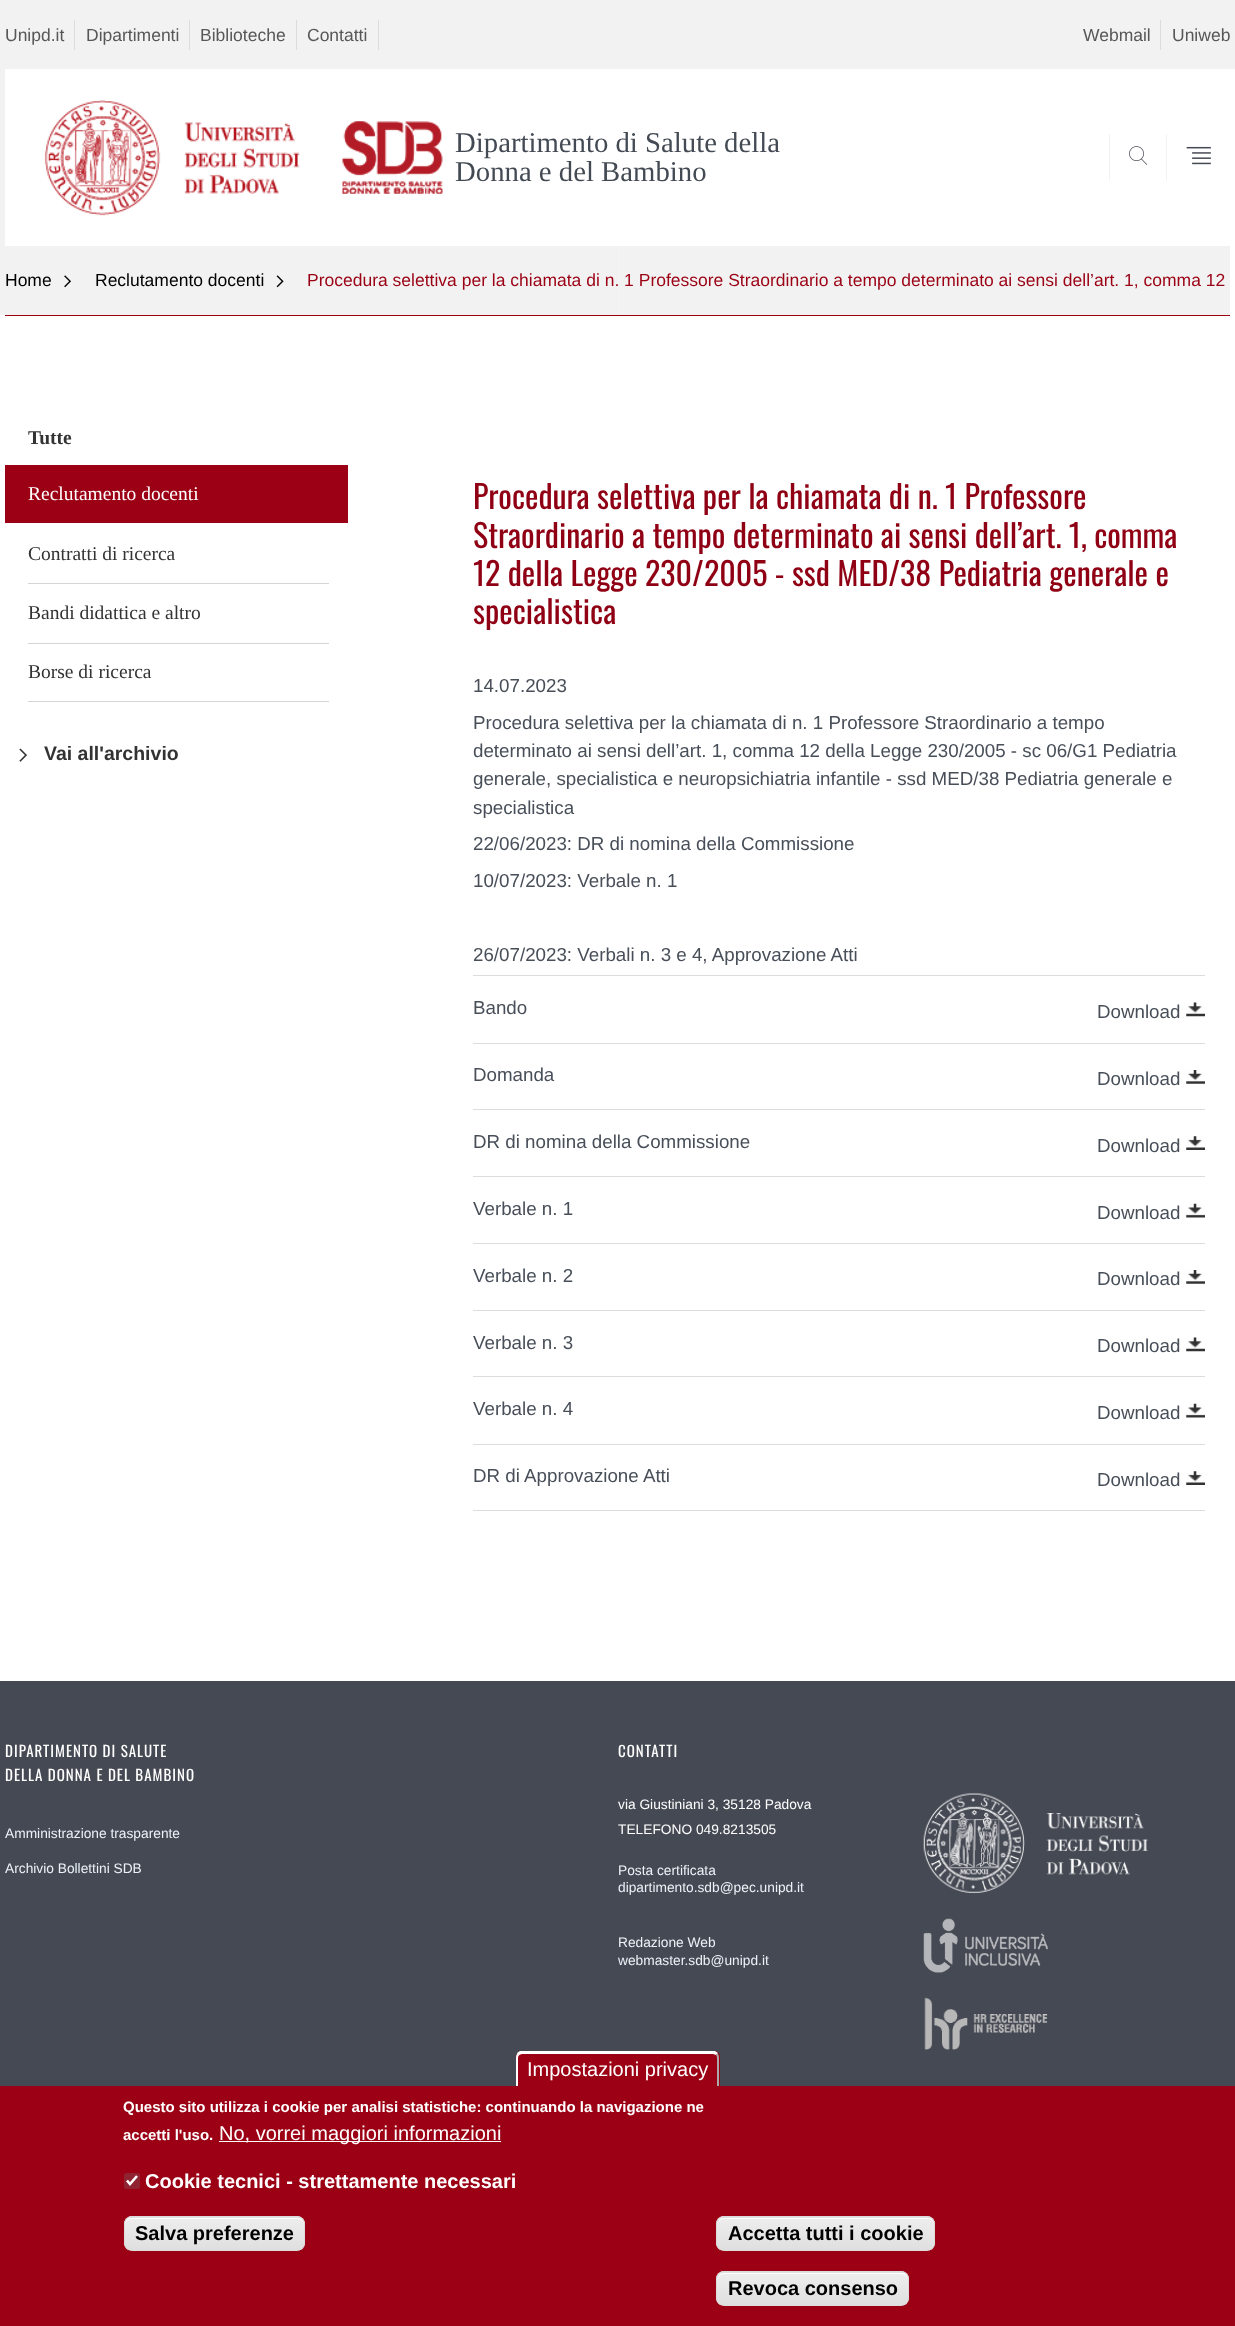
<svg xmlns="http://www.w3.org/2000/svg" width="1235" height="2326">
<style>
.a{font:17.5px Liberation Sans;fill:#575757}
.b{font:28.75px Liberation Serif;fill:#434a53}
.c{font:17.5px Liberation Sans;fill:#000}
.d{font:17.5px Liberation Sans;fill:#9b0014}
.e{font:bold 19.5px Liberation Serif;fill:#333}
.f{font:19.5px Liberation Serif;fill:#fff}
.g{font:19.5px Liberation Serif;fill:#333}
.h{font:bold 19.5px Liberation Sans;fill:#333}
.i{font:32px Oswald;fill:#900014}
.j{font:18.75px Liberation Sans;fill:#484f59}
.k{font:15px Oswald;letter-spacing:1px;fill:#fff}
.l{font:13.75px Liberation Sans;fill:#ecf2f8}
.m{font:13.75px Liberation Sans;fill:#fff}
.n{font:20px Liberation Sans;fill:#fff}
.o{font:bold 15px Liberation Sans;fill:#fff}
.p{font:bold 20px Liberation Sans;fill:#fff}
.q{font:bold 20px Liberation Sans;fill:#000}
</style>
<defs>
<linearGradient id="g1" gradientUnits="userSpaceOnUse" x1="0" y1="158" x2="1235" y2="157"><stop offset="0" stop-color="#9b0014" stop-opacity="0"/><stop offset="0.5" stop-color="#fff" stop-opacity="0"/><stop offset="0.51" stop-color="#fff"/><stop offset="1" stop-color="#fff"/></linearGradient>
<linearGradient id="g2" gradientUnits="userSpaceOnUse" x1="0" y1="281" x2="1235" y2="281"><stop offset="0" stop-color="#f2f2f2"/><stop offset="0.5" stop-color="#f2f2f2"/><stop offset="0.51" stop-color="#fff"/><stop offset="1" stop-color="#fff"/></linearGradient>
<clipPath id="clip1"><rect x="124" y="2216" width="181" height="35" rx="8"/></clipPath>
<linearGradient id="g3" gradientUnits="userSpaceOnUse" x1="214" y1="2185" x2="214" y2="2218"><stop offset="0.05" stop-color="#ededed"/><stop offset="1" stop-color="#dfdfdf"/></linearGradient>
<linearGradient id="g4" gradientUnits="userSpaceOnUse" x1="214" y1="2218" x2="214" y2="2250"><stop offset="0.05" stop-color="#ededed"/><stop offset="1" stop-color="#dfdfdf"/></linearGradient>
<clipPath id="clip2"><rect x="716" y="2216" width="219" height="35" rx="8"/></clipPath>
<linearGradient id="g5" gradientUnits="userSpaceOnUse" x1="826" y1="2185" x2="826" y2="2218"><stop offset="0.05" stop-color="#ededed"/><stop offset="1" stop-color="#dfdfdf"/></linearGradient>
<linearGradient id="g6" gradientUnits="userSpaceOnUse" x1="826" y1="2218" x2="826" y2="2250"><stop offset="0.05" stop-color="#ededed"/><stop offset="1" stop-color="#dfdfdf"/></linearGradient>
<clipPath id="clip3"><rect x="716" y="2271" width="193" height="35" rx="8"/></clipPath>
<linearGradient id="g7" gradientUnits="userSpaceOnUse" x1="813" y1="2240" x2="813" y2="2273"><stop offset="0.05" stop-color="#ededed"/><stop offset="1" stop-color="#dfdfdf"/></linearGradient>
<linearGradient id="g8" gradientUnits="userSpaceOnUse" x1="813" y1="2273" x2="813" y2="2305"><stop offset="0.05" stop-color="#ededed"/><stop offset="1" stop-color="#dfdfdf"/></linearGradient>
</defs>
<rect width="100%" height="100%" fill="#fff"/>
<path fill="#f2f2f2" d="M0 0h1235v246H0z"/>
<path fill="#dcdcdc" d="M74 20h1v30H74z"/>
<path fill="#dcdcdc" d="M189 20h1v30H189z"/>
<path fill="#dcdcdc" d="M296 20h1v30H296z"/>
<path fill="#dcdcdc" d="M378 20h1v30H378z"/>
<path fill="#dcdcdc" d="M1160 20h1v30H1160z"/>
<path fill="url(#g1)" d="M1230 69h5v177H1230z"/>
<path fill="#fff" d="M5 69h1225v177H5z"/>
<image href="1.png" x="44" y="100" width="256" height="116"/>
<image href="2.png" x="342" y="121" width="101" height="73"/>
<path fill="#f2f2f2" d="M1109 134h1v47H1109z"/>
<image href="3.png" x="1129" y="146" width="19" height="19"/>
<path fill="#f2f2f2" d="M1166 134h1v47H1166z"/>
<image href="4.png" x="1186" y="146" width="25" height="19"/>
<path fill="url(#g2)" d="M0 246h627v69H0z"/>
<path fill="#f2f2f2" d="M620 246h610v69H620z"/>
<image href="5.png" x="64" y="275" width="7" height="13"/>
<image href="6.png" x="276" y="275" width="8" height="13"/>
<path fill="#9b0014" d="M5 315h1225v1H5z"/>
<path fill="#9b0014" d="M5 465h343v58H5z"/>
<path fill="#d4d4d4" d="M28 583h301v1H28z"/>
<path fill="#d4d4d4" d="M28 643h301v1H28z"/>
<path fill="#d4d4d4" d="M28 701h301v1H28z"/>
<image href="7.png" x="19" y="748" width="8" height="14"/>
<path fill="#ddd" d="M473 975h732v1H473z"/>
<path fill="#ddd" d="M473 1043h732v1H473z"/>
<image href="8.png" x="1186" y="1002" width="19" height="15"/>
<path fill="#ddd" d="M473 1109h732v1H473z"/>
<image href="9.png" x="1186" y="1070" width="19" height="14"/>
<path fill="#ddd" d="M473 1176h732v1H473z"/>
<image href="10.png" x="1186" y="1136" width="19" height="14"/>
<path fill="#ddd" d="M473 1243h732v1H473z"/>
<image href="11.png" x="1186" y="1203" width="19" height="15"/>
<path fill="#ddd" d="M473 1310h732v1H473z"/>
<image href="9.png" x="1186" y="1270" width="19" height="14"/>
<path fill="#ddd" d="M473 1376h732v1H473z"/>
<image href="8.png" x="1186" y="1337" width="19" height="15"/>
<path fill="#ddd" d="M473 1444h732v1H473z"/>
<image href="11.png" x="1186" y="1403" width="19" height="15"/>
<path fill="#ddd" d="M473 1510h732v1H473z"/>
<image href="10.png" x="1186" y="1471" width="19" height="14"/>
<path fill="#454953" d="M0 1681h1235v405H0z"/>
<image href="12.png" x="923" y="1792" width="225" height="102"/>
<image href="13.png" x="923" y="1918" width="125" height="55"/>
<image href="14.png" x="924" y="1997" width="124" height="53"/>
<path fill="#9b0014" d="M0 2086h1235v240H0z"/>
<path fill="#9b0014" d="M522 2051h192c3.5 0 6 2.5 6 6v29h-204v-29c0-3.5 2.5-6 6-6z"/>
<path fill="#fff" d="M522 2054l-3 1l-2-2l3-2h195l3 2l-2 2l-3-1z"/>
<path fill="#aaa" d="M717.5 2053l-1.5 2c.5 .5 1 1.5 1 3v28h2v-28c0-2-.5-3.5-1.5-5z"/>
<path fill="#fff" d="M519.5 2055l-2-2c-1 1.5-1.5 3-1.5 5v28h2v-28c0-1.5 .5-2.5 1.5-3z"/>
<path fill="#fff" d="M219 2141h282v1H219z"/>
<rect fill="#902331" x="124" y="2173" width="16" height="16" rx="2.5"/>
<path fill="none" stroke="#fff" stroke-width="2.6" d="M127 2180.5l3 3.5l7-8"/>
<g clip-path="url(#clip1)">
<path fill="url(#g3)" d="M124 2216h181v2H124z"/>
<path fill="url(#g4)" d="M124 2218h181v32H124z"/>
</g>
<path fill="#fff" d="M131 2219h167c3 0 6 3 6 6v-1c0-3-3-6-6-6h-167c-3 0-6 3-6 6v1c0-3 3-6 6-6z"/>
<rect fill="none" stroke="#dcdcdc" x="124.5" y="2216.5" width="180" height="34" rx="7.5"/>
<g clip-path="url(#clip2)">
<path fill="url(#g5)" d="M716 2216h219v2H716z"/>
<path fill="url(#g6)" d="M716 2218h219v32H716z"/>
</g>
<path fill="#fff" d="M724 2219h204c3 0 6 3 6 6c0-3-1-6-5-7h-205c-4 0-6 3-6 7c0-3 2-6 6-6z"/>
<rect fill="none" stroke="#dcdcdc" x="716.5" y="2216.5" width="218" height="34" rx="7.5"/>
<g clip-path="url(#clip3)">
<path fill="url(#g7)" d="M716 2271h193v2H716z"/>
<path fill="url(#g8)" d="M716 2273h193v32H716z"/>
</g>
<path fill="#fff" d="M724 2274h177c4 0 7 3 7 6v-1c0-3-3-6-6-6h-178c-3 0-6 3-6 6v1c0-3 2-6 6-6z"/>
<rect fill="none" stroke="#dcdcdc" x="716.5" y="2271.5" width="192" height="34" rx="7.5"/>
<text class="a" x="5" y="41">Unipd.it</text>
<text class="a" x="86" y="41">Dipartimenti</text>
<text class="a" x="200" y="41">Biblioteche</text>
<text class="a" x="307" y="41">Contatti</text>
<text class="a" x="1083" y="41">Webmail</text>
<text class="a" x="1172" y="41">Uniweb</text>
<text class="b" x="455" y="152">Dipartimento di Salute della</text>
<text class="b" x="455" y="181">Donna e del Bambino</text>
<text class="c" x="5" y="286">Home</text>
<text class="c" x="95" y="286">Reclutamento docenti</text>
<text class="d" x="307" y="286">Procedura selettiva per la chiamata di n. 1 Professore Straordinario a tempo determinato ai sensi dell’art. 1, comma 12</text>
<text class="e" x="28" y="444">Tutte</text>
<text class="f" x="28" y="500">Reclutamento docenti</text>
<text class="g" x="28" y="560">Contratti di ricerca</text>
<text class="g" x="28" y="619">Bandi didattica e altro</text>
<text class="g" x="28" y="678">Borse di ricerca</text>
<text class="h" x="44" y="760">Vai all'archivio</text>
<text class="i" x="473" y="509">Procedura selettiva per la chiamata di n. 1 Professore</text>
<text class="i" x="473" y="548">Straordinario a tempo determinato ai sensi dell’art. 1, comma</text>
<text class="i" x="473" y="586">12 della Legge 230/2005 - ssd MED/38 Pediatria generale e</text>
<text class="i" x="473" y="624">specialistica</text>
<text class="j" x="473" y="692">14.07.2023</text>
<text class="j" x="473" y="729">Procedura selettiva per la chiamata di n. 1 Professore Straordinario a tempo</text>
<text class="j" x="473" y="757">determinato ai sensi dell’art. 1, comma 12 della Legge 230/2005 - sc 06/G1 Pediatria</text>
<text class="j" x="473" y="785">generale, specialistica e neuropsichiatria infantile - ssd MED/38 Pediatria generale e</text>
<text class="j" x="473" y="814">specialistica</text>
<text class="j" x="473" y="850">22/06/2023: DR di nomina della Commissione</text>
<text class="j" x="473" y="887">10/07/2023: Verbale n. 1</text>
<text class="j" x="473" y="961">26/07/2023: Verbali n. 3 e 4, Approvazione Atti</text>
<text class="j" x="473" y="1014">Bando</text>
<text class="j" x="1097" y="1018">Download</text>
<text class="j" x="473" y="1081">Domanda</text>
<text class="j" x="1097" y="1085">Download</text>
<text class="j" x="473" y="1148">DR di nomina della Commissione</text>
<text class="j" x="1097" y="1152">Download</text>
<text class="j" x="473" y="1215">Verbale n. 1</text>
<text class="j" x="1097" y="1219">Download</text>
<text class="j" x="473" y="1282">Verbale n. 2</text>
<text class="j" x="1097" y="1285">Download</text>
<text class="j" x="473" y="1349">Verbale n. 3</text>
<text class="j" x="1097" y="1352">Download</text>
<text class="j" x="473" y="1415">Verbale n. 4</text>
<text class="j" x="1097" y="1419">Download</text>
<text class="j" x="473" y="1482">DR di Approvazione Atti</text>
<text class="j" x="1097" y="1486">Download</text>
<text class="k" x="5" y="1757">DIPARTIMENTO DI SALUTE</text>
<text class="k" x="5" y="1781">DELLA DONNA E DEL BAMBINO</text>
<text class="l" x="5" y="1838">Amministrazione trasparente</text>
<text class="l" x="5" y="1873">Archivio Bollettini SDB</text>
<text class="k" x="618" y="1757">CONTATTI</text>
<text class="m" x="618" y="1809">via Giustiniani 3, 35128 Padova</text>
<text class="m" x="618" y="1834">TELEFONO 049.8213505</text>
<text class="l" x="618" y="1875">Posta certificata</text>
<text class="l" x="618" y="1892">dipartimento.sdb@pec.unipd.it</text>
<text class="l" x="618" y="1947">Redazione Web</text>
<text class="l" x="618" y="1965">webmaster.sdb@unipd.it</text>
<text class="n" x="527" y="2076">Impostazioni privacy</text>
<text class="o" x="123" y="2112">Questo sito utilizza i cookie per analisi statistiche: continuando la navigazione ne</text>
<text class="o" x="123" y="2140">accetti l'uso.</text>
<text class="n" x="219" y="2140">No, vorrei maggiori informazioni</text>
<text class="p" x="145" y="2188">Cookie tecnici - strettamente necessari</text>
<text class="q" x="135" y="2240">Salva preferenze</text>
<text class="q" x="728" y="2240">Accetta tutti i cookie</text>
<text class="q" x="728" y="2295">Revoca consenso</text>
</svg>
